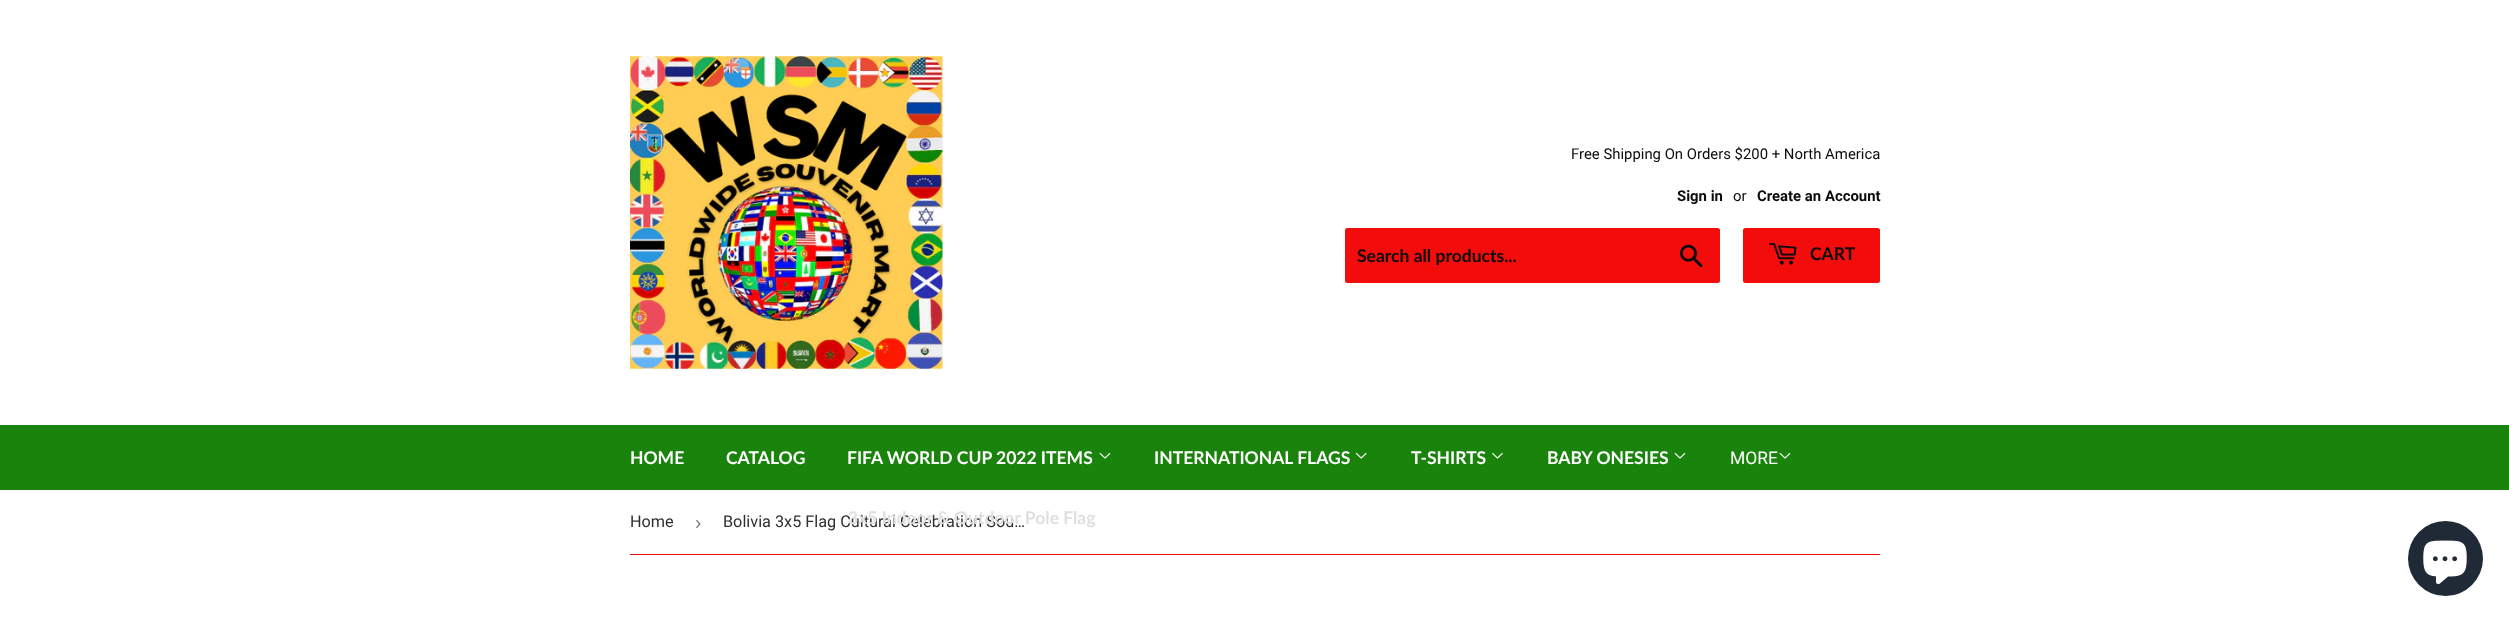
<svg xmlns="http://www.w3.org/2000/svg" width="2509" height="622">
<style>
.a{font:14.9px Roboto;fill:#0d0c0c}
.b{font:bold 14.9px Roboto;fill:#0d0c0c}
.c{font:bold 17.5px Lato;fill:#0d0c0c}
.d{font:bold 17.5px Lato;fill:#fff}
.e{font:17.5px Roboto;fill:#fff}
.f{font:16.25px Roboto;fill:#2f2f2f}
.g{font:19px Liberation Sans;fill:#767676}
.h{font:bold 17.5px Lato;fill:#e0e0e0}
</style>
<rect width="100%" height="100%" fill="#fff"/>
<image href="1.png" x="630" y="56" width="313" height="313"/>
<rect fill="#f20c0c" x="1345" y="228" width="375" height="55" rx="2.5"/>
<image href="2.png" x="1680" y="244" width="23" height="24"/>
<rect fill="#f20c0c" x="1743" y="228" width="137" height="55" rx="2.5"/>
<image href="3.png" x="1769" y="243" width="28" height="22"/>
<path fill="#1a830c" d="M0 425h2509v65H0z"/>
<image href="4.png" x="1099" y="452" width="12" height="7"/>
<image href="5.png" x="1355" y="452" width="12" height="7"/>
<image href="6.png" x="1492" y="452" width="11" height="7"/>
<image href="4.png" x="1674" y="452" width="12" height="7"/>
<image href="4.png" x="1779" y="452" width="12" height="7"/>
<path fill="#f90808" d="M630 554h1250v1H630z"/>
<circle fill="#202a36" cx="2445.5" cy="558.5" r="37.5"/>
<image href="7.png" x="2423" y="540" width="44" height="45"/>
<text class="a" x="1571" y="159">Free Shipping On Orders $200 + North America</text>
<text class="b" x="1677" y="201">Sign in</text>
<text class="a" x="1733" y="201">or</text>
<text class="b" x="1757" y="201">Create an Account</text>
<text class="c" x="1357" y="262">Search all products...</text>
<text class="c" x="1810" y="260">CART</text>
<text class="d" x="630" y="464">HOME</text>
<text class="d" x="726" y="464">CATALOG</text>
<text class="d" x="847" y="464">FIFA WORLD CUP 2022 ITEMS</text>
<text class="d" x="1154" y="464">INTERNATIONAL FLAGS</text>
<text class="d" x="1411" y="464">T-SHIRTS</text>
<text class="d" x="1547" y="464">BABY ONESIES</text>
<text class="e" x="1730" y="464">MORE</text>
<text class="f" x="630" y="527">Home</text>
<text class="g" x="695" y="529">›</text>
<text class="f" x="723" y="527">Bolivia 3x5 Flag Cultural Celebration Sou…</text>
<text class="h" x="848" y="524">3x5 Indoor &amp; Outdoor Pole Flag</text>
</svg>
